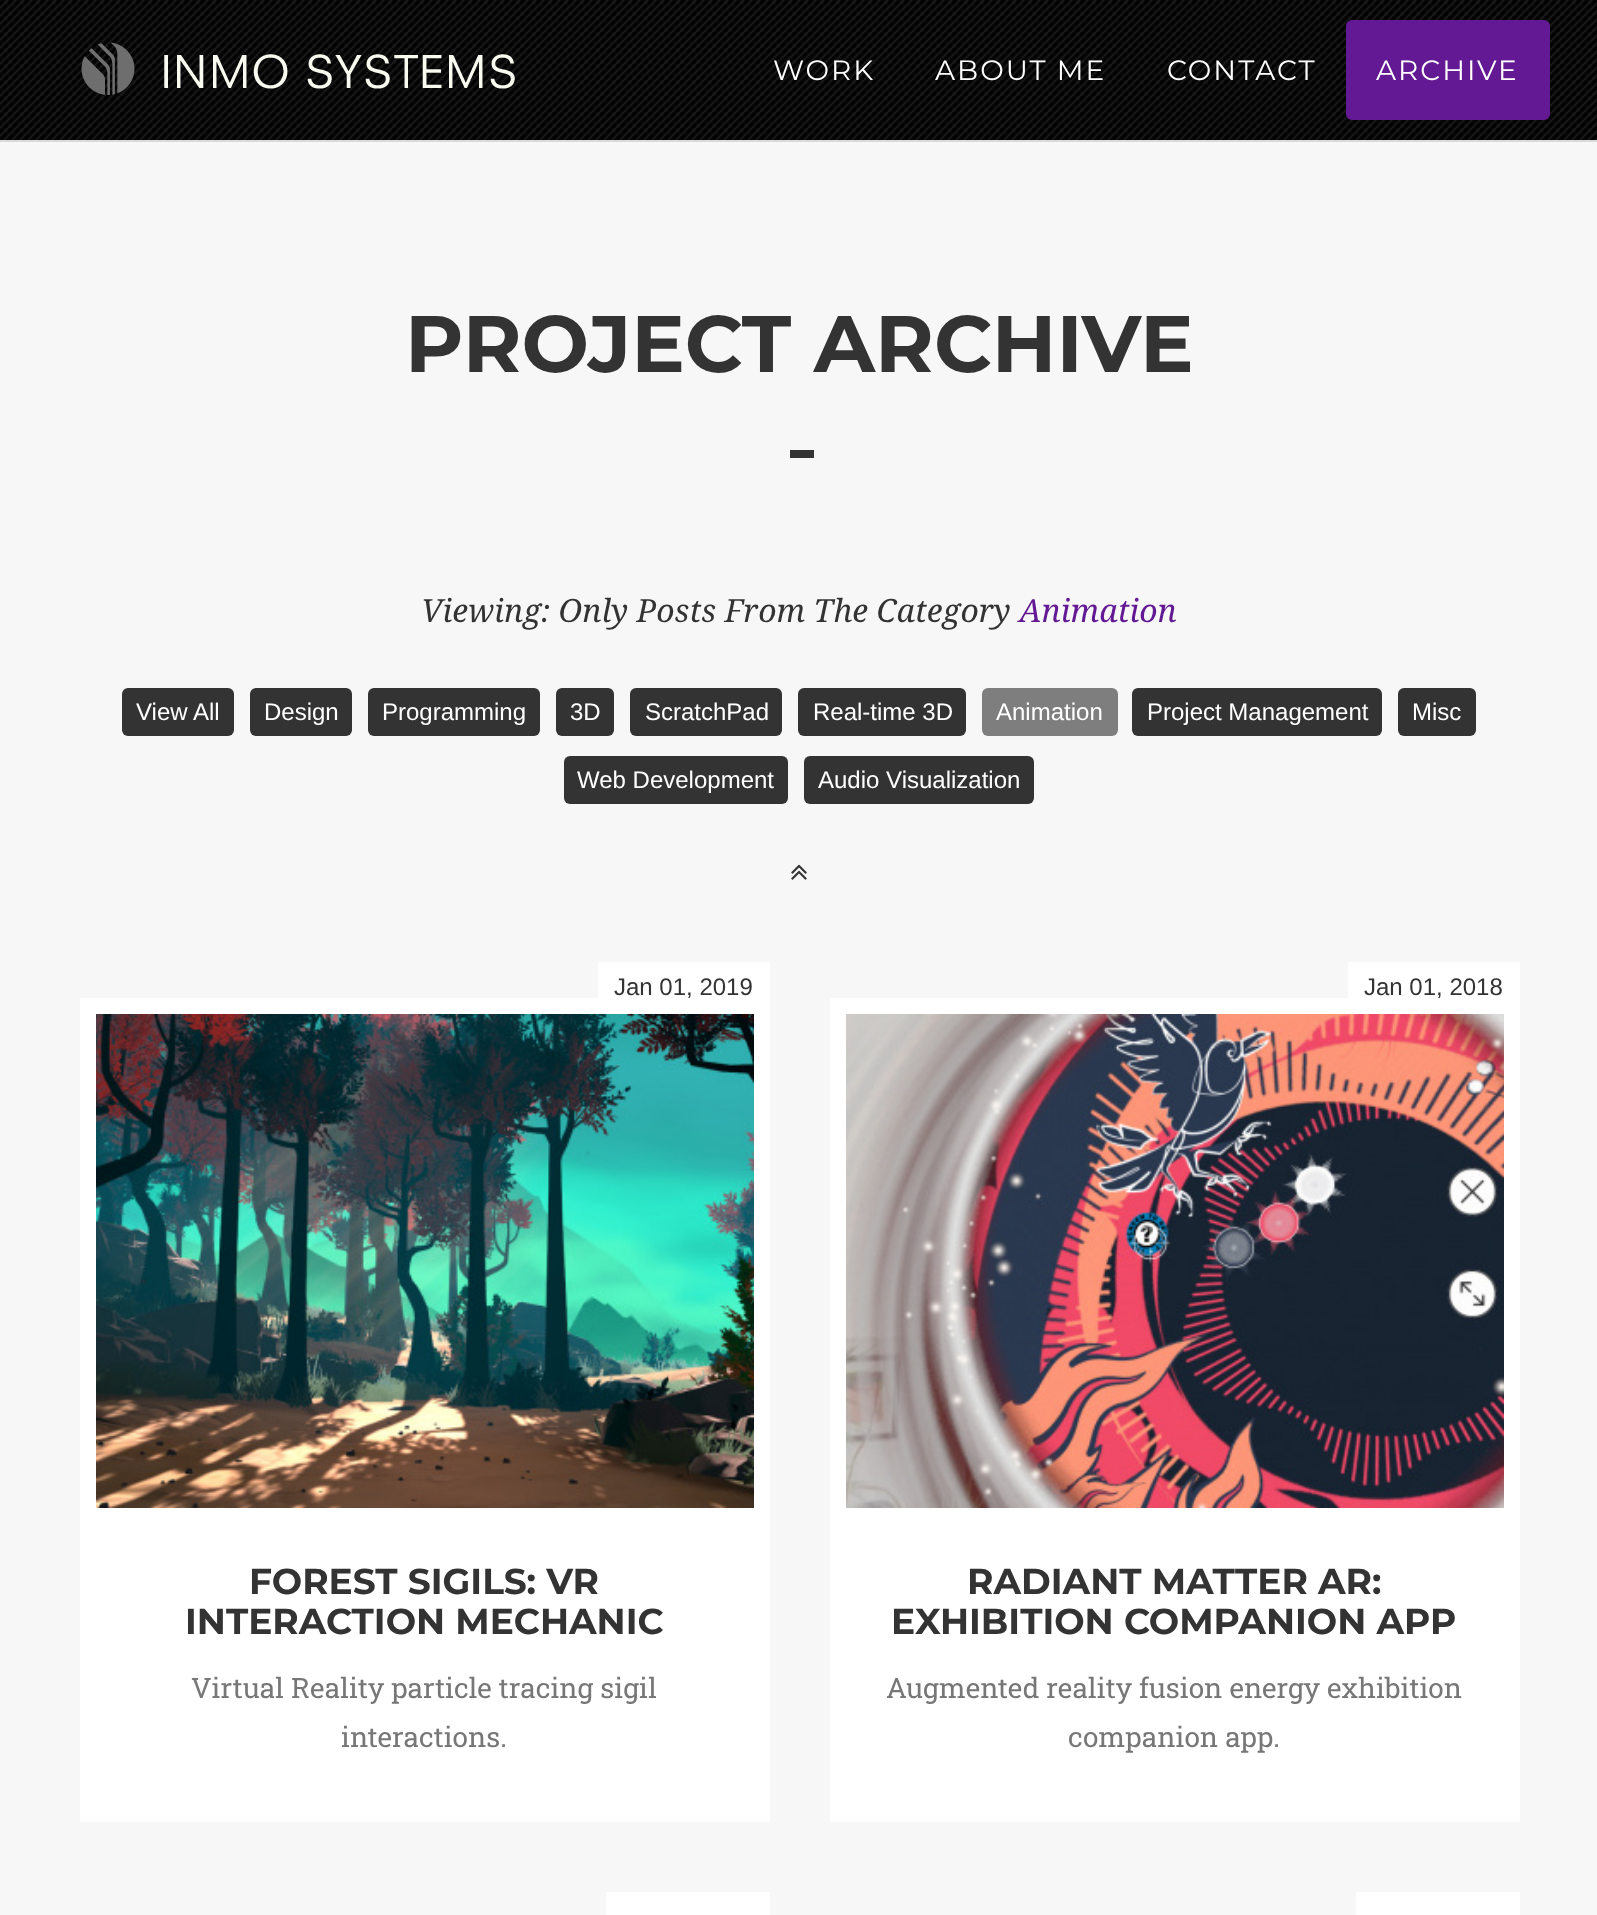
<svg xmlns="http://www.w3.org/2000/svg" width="1597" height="1915">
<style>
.a{font:28px Montserrat;letter-spacing:2px;fill:#fff}
.b{font:bold 80px Montserrat;fill:#333}
.c{font:italic 32px Droid Serif;fill:#333}
.d{font:italic 32px Droid Serif;fill:#621993}
.e{font:24px Liberation Sans;fill:#fff}
.f{font:24px Liberation Sans;fill:#333}
.g{font:bold 36px Montserrat;fill:#333}
.h{font:28px Roboto Slab;fill:#777}
</style>
<rect width="100%" height="100%" fill="#f7f7f7"/>
<image href="1.png" x="0" y="0" width="1597" height="140"/>
<path fill="#d9d9d9" d="M0 140h1597v2H0z"/>
<image href="2.png" x="81" y="42" width="434" height="53"/>
<rect fill="#621993" x="1346" y="20" width="204" height="100" rx="6"/>
<path fill="#333" d="M790 450h24v8H790z"/>
<rect fill="#333" x="122" y="688" width="112" height="48" rx="6"/>
<rect fill="#333" x="250" y="688" width="102" height="48" rx="6"/>
<rect fill="#333" x="368" y="688" width="172" height="48" rx="6"/>
<rect fill="#333" x="556" y="688" width="58" height="48" rx="6"/>
<rect fill="#333" x="630" y="688" width="152" height="48" rx="6"/>
<rect fill="#333" x="798" y="688" width="168" height="48" rx="6"/>
<rect fill="#7e7e7e" x="982" y="688" width="136" height="48" rx="6"/>
<rect fill="#333" x="1132" y="688" width="250" height="48" rx="6"/>
<rect fill="#333" x="1398" y="688" width="78" height="48" rx="6"/>
<rect fill="#333" x="564" y="756" width="224" height="48" rx="6"/>
<rect fill="#333" x="804" y="756" width="230" height="48" rx="6"/>
<image href="3.png" x="791" y="864" width="16" height="16"/>
<path fill="#fff" d="M598 962h172v36H598z"/>
<path fill="none" stroke="#fff" stroke-width="16" d="M88 1006h674v510H88z"/>
<image href="4.png" x="96" y="1014" width="658" height="494"/>
<path fill="#fff" d="M80 1524h690v298H80z"/>
<path fill="#fff" d="M1348 962h172v36H1348z"/>
<path fill="none" stroke="#fff" stroke-width="16" d="M838 1006h674v510H838z"/>
<image href="5.png" x="846" y="1014" width="658" height="494"/>
<path fill="#fff" d="M830 1524h690v298H830z"/>
<path fill="#fff" d="M606 1892h164v23H606z"/>
<path fill="#fff" d="M1356 1892h164v23H1356z"/>
<text class="a" x="773" y="80">WORK</text>
<text class="a" x="935" y="80">ABOUT ME</text>
<text class="a" x="1167" y="80">CONTACT</text>
<text class="a" x="1376" y="80">ARCHIVE</text>
<text class="b" x="405" y="372">PROJECT ARCHIVE</text>
<text class="c" x="421" y="622">Viewing: Only Posts From The Category</text>
<text class="d" x="1019" y="622">Animation</text>
<text class="e" x="136" y="720">View All</text>
<text class="e" x="264" y="720">Design</text>
<text class="e" x="382" y="720">Programming</text>
<text class="e" x="570" y="720">3D</text>
<text class="e" x="645" y="720">ScratchPad</text>
<text class="e" x="813" y="720">Real-time 3D</text>
<text class="e" x="996" y="720">Animation</text>
<text class="e" x="1147" y="720">Project Management</text>
<text class="e" x="1412" y="720">Misc</text>
<text class="e" x="577" y="788">Web Development</text>
<text class="e" x="818" y="788">Audio Visualization</text>
<text class="f" x="614" y="995">Jan 01, 2019</text>
<text class="g" x="249" y="1594">FOREST SIGILS: VR</text>
<text class="g" x="185" y="1634">INTERACTION MECHANIC</text>
<text class="h" x="191" y="1698">Virtual Reality particle tracing sigil</text>
<text class="h" x="341" y="1747">interactions.</text>
<text class="f" x="1364" y="995">Jan 01, 2018</text>
<text class="g" x="967" y="1594">RADIANT MATTER AR:</text>
<text class="g" x="891" y="1634">EXHIBITION COMPANION APP</text>
<text class="h" x="886" y="1698">Augmented reality fusion energy exhibition</text>
<text class="h" x="1068" y="1747">companion app.</text>
</svg>
